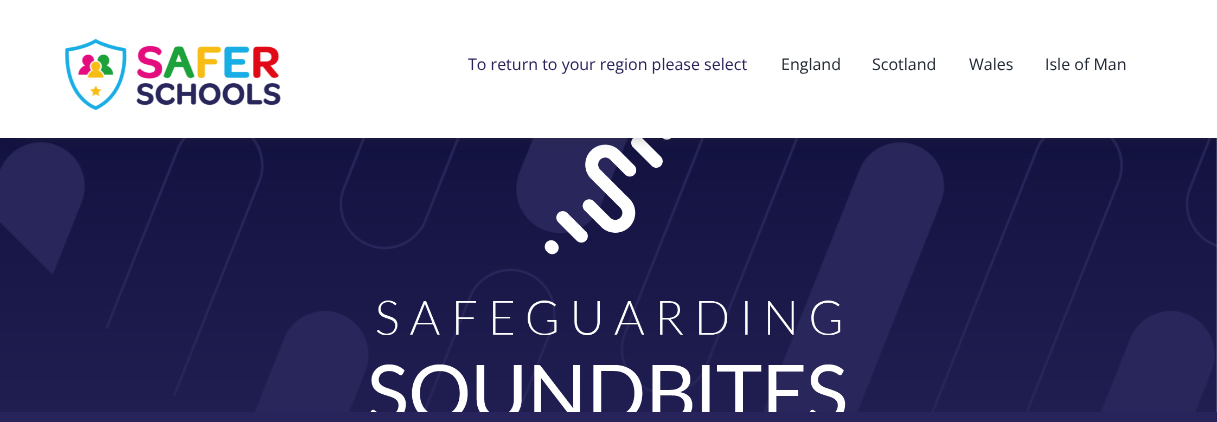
<svg xmlns="http://www.w3.org/2000/svg" width="1217" height="422">
<style>
.a{font:16px Open Sans;fill:#29235c}
.b{font:16px Open Sans;fill:#212934}
</style>
<rect width="100%" height="100%" fill="#fff"/>
<image href="2.png" x="0" y="138" width="1217" height="274"/>
<image href="3.png" x="370" y="138" width="476" height="274"/>
<path fill="#333" filter="blur(10px)" d="M19 9h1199v120H19z"/>
<path fill="#fff" d="M0 0h1217v138H0z"/>
<image href="1.png" x="65" y="39" width="216" height="72"/>
<path fill="#29235c" d="M0 412h1217v10H0z"/>
<text class="a" x="468" y="70">To return to your region please select</text>
<text class="b" x="781" y="70">England</text>
<text class="b" x="872" y="70">Scotland</text>
<text class="b" x="969" y="70">Wales</text>
<text class="b" x="1045" y="70">Isle of Man</text>
</svg>
